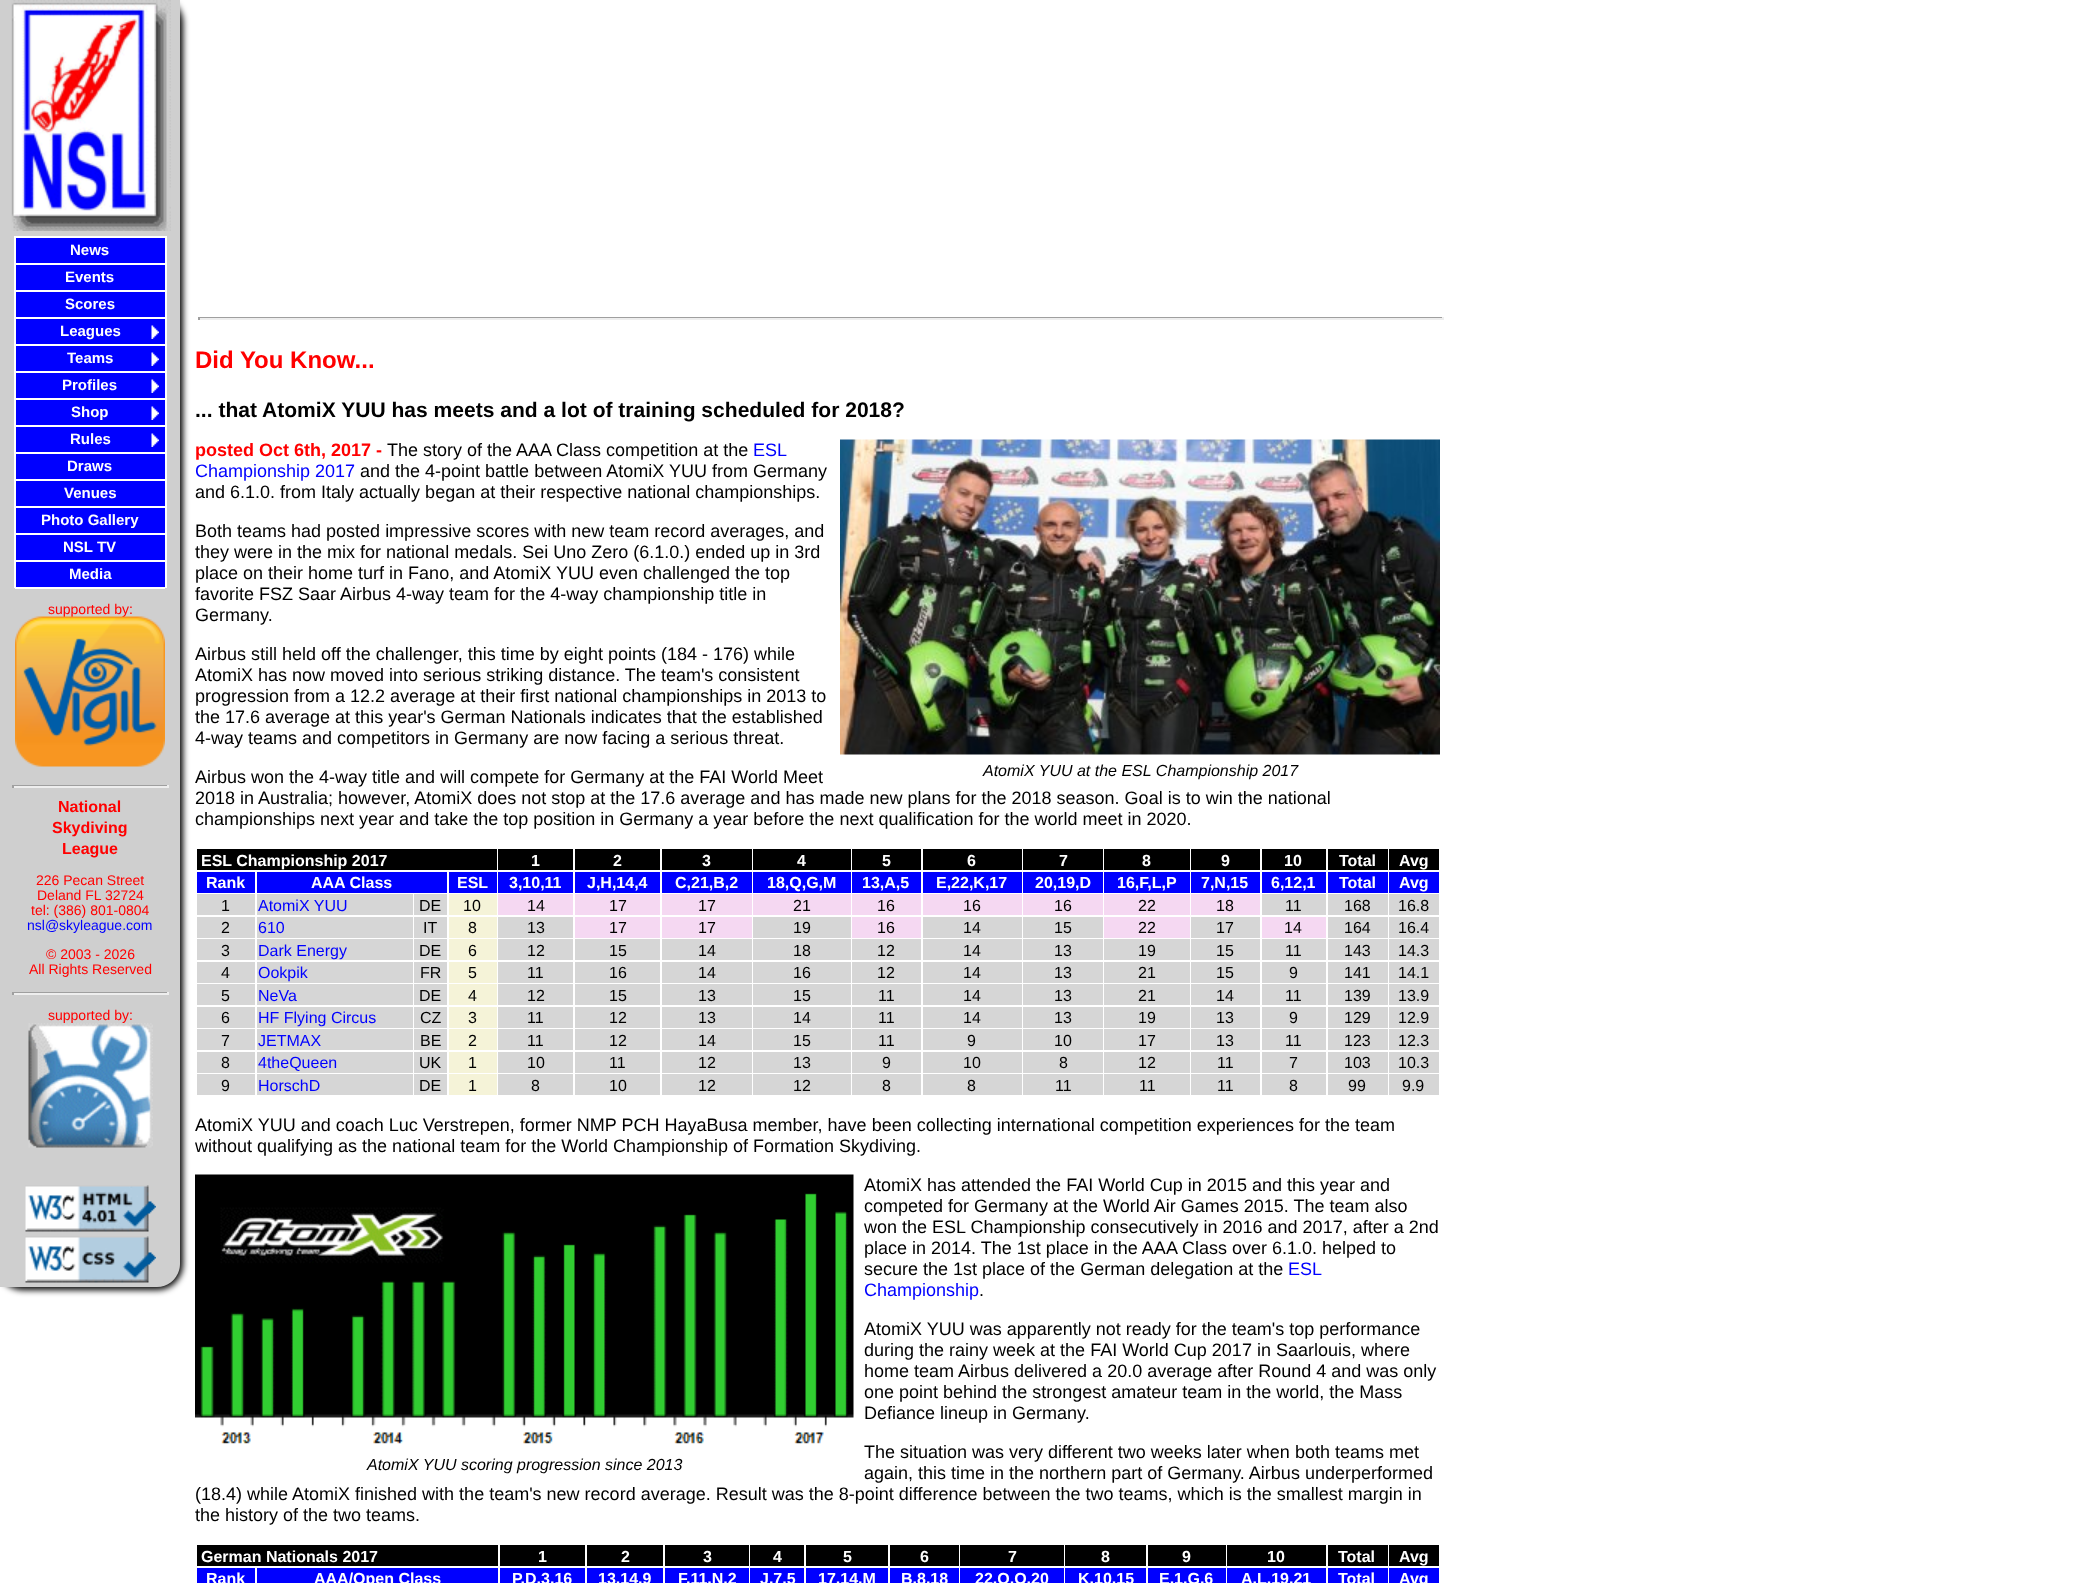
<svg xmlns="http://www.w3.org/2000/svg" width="2095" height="1583">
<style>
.a{font:bold 15px Liberation Sans;fill:#fff}
.b{font:14px Liberation Sans;fill:#f00}
.c{font:bold 16px Liberation Sans;fill:#f00}
.d{font:14px Liberation Sans;fill:#00f}
.e{font:bold 24px Liberation Sans;fill:#f00}
.f{font:bold 21.05px Liberation Sans;fill:#000}
.g{font:bold 18px Liberation Sans;fill:#f00}
.h{font:18px Liberation Sans;fill:#000}
.i{font:18px Liberation Sans;fill:#00f}
.j{font:italic 16px Liberation Sans;fill:#000}
.k{font:bold 16px Liberation Sans;fill:#fff}
.l{font:16px Liberation Sans;fill:#000}
.m{font:16px Liberation Sans;fill:#00f}
</style>
<rect width="100%" height="100%" fill="#fff"/>
<rect fill="#000" filter="blur(3px)" x="-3" y="-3" width="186" height="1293" rx="26"/>
<path fill="#cfcfcf" d="M0 0h180v1264c0 12.5-10.5 23-23 23h-157z"/>
<image href="1.png" x="11" y="0" width="160" height="231"/>
<path fill="#00f" d="M16 238h149v349H16z"/>
<path fill="#fff" d="M14 236h153v2H14z"/>
<path fill="#fff" d="M165 236h2v352H165z"/>
<path fill="#fff" d="M14 236h2v352H14z"/>
<path fill="#fff" d="M15 263h150v2H15z"/>
<path fill="#fff" d="M15 290h150v2H15z"/>
<path fill="#fff" d="M15 317h150v2H15z"/>
<path fill="#fff" d="M15 344h150v2H15z"/>
<image href="2.png" x="151" y="325" width="8" height="14"/>
<path fill="#fff" d="M15 371h150v2H15z"/>
<image href="2.png" x="151" y="352" width="8" height="14"/>
<path fill="#fff" d="M15 398h150v2H15z"/>
<image href="2.png" x="151" y="379" width="8" height="14"/>
<path fill="#fff" d="M15 425h150v2H15z"/>
<image href="2.png" x="151" y="406" width="8" height="14"/>
<path fill="#fff" d="M15 452h150v2H15z"/>
<image href="2.png" x="151" y="433" width="8" height="14"/>
<path fill="#fff" d="M15 479h150v2H15z"/>
<path fill="#fff" d="M15 506h150v2H15z"/>
<path fill="#fff" d="M15 533h150v2H15z"/>
<path fill="#fff" d="M15 560h150v2H15z"/>
<path fill="#fff" d="M15 587h150v2H15z"/>
<path fill="#9f9f9f" d="M12 785h156v1H12z"/>
<path fill="#eee" d="M167 785h2v3H167z"/>
<path fill="#eee" d="M12 786h156v2H12z"/>
<path fill="#9f9f9f" d="M12 785h2v3H12z"/>
<path fill="#9f9f9f" d="M12 992h156v1H12z"/>
<path fill="#eee" d="M167 992h2v3H167z"/>
<path fill="#eee" d="M12 993h156v2H12z"/>
<path fill="#9f9f9f" d="M12 992h2v3H12z"/>
<image href="4.png" x="28" y="1023" width="125" height="125"/>
<image href="5.png" x="25" y="1185" width="131" height="47"/>
<image href="6.png" x="25" y="1236" width="131" height="47"/>
<path fill="#9f9f9f" d="M198 317h1245v1H198z"/>
<path fill="#eee" d="M1442 317h2v3H1442z"/>
<path fill="#eee" d="M198 318h1245v2H198z"/>
<path fill="#9f9f9f" d="M198 317h2v3H198z"/>
<image href="7.png" x="840" y="439" width="600" height="316"/>
<path fill="#000" d="M197 849h300v21H197z"/>
<path fill="#000" d="M498 849h75v21H498z"/>
<path fill="#000" d="M575 849h85v21H575z"/>
<path fill="#000" d="M662 849h90v21H662z"/>
<path fill="#000" d="M753 849h98v21H753z"/>
<path fill="#000" d="M852 849h69v21H852z"/>
<path fill="#000" d="M923 849h99v21H923z"/>
<path fill="#000" d="M1023 849h80v21H1023z"/>
<path fill="#000" d="M1104 849h86v21H1104z"/>
<path fill="#000" d="M1191 849h69v21H1191z"/>
<path fill="#000" d="M1262 849h64v21H1262z"/>
<path fill="#000" d="M1328 849h60v21H1328z"/>
<path fill="#000" d="M1389 849h50v21H1389z"/>
<path fill="#00f" d="M197 872h58v21H197z"/>
<path fill="#00f" d="M257 872h190v21H257z"/>
<path fill="#00f" d="M449 872h48v21H449z"/>
<path fill="#00f" d="M498 872h75v21H498z"/>
<path fill="#00f" d="M575 872h85v21H575z"/>
<path fill="#00f" d="M662 872h90v21H662z"/>
<path fill="#00f" d="M753 872h98v21H753z"/>
<path fill="#00f" d="M852 872h69v21H852z"/>
<path fill="#00f" d="M923 872h99v21H923z"/>
<path fill="#00f" d="M1023 872h80v21H1023z"/>
<path fill="#00f" d="M1104 872h86v21H1104z"/>
<path fill="#00f" d="M1191 872h69v21H1191z"/>
<path fill="#00f" d="M1262 872h64v21H1262z"/>
<path fill="#00f" d="M1328 872h60v21H1328z"/>
<path fill="#00f" d="M1389 872h50v21H1389z"/>
<path fill="#d6d6d6" d="M197 894h58v21H197z"/>
<path fill="#d6d6d6" d="M257 894h156v21H257z"/>
<path fill="#d6d6d6" d="M414 894h33v21H414z"/>
<path fill="#f5f3d8" d="M449 894h48v21H449z"/>
<path fill="#f5d8f2" d="M498 894h75v21H498z"/>
<path fill="#f5d8f2" d="M575 894h85v21H575z"/>
<path fill="#f5d8f2" d="M662 894h90v21H662z"/>
<path fill="#f5d8f2" d="M753 894h98v21H753z"/>
<path fill="#f5d8f2" d="M852 894h69v21H852z"/>
<path fill="#f5d8f2" d="M923 894h99v21H923z"/>
<path fill="#f5d8f2" d="M1023 894h80v21H1023z"/>
<path fill="#f5d8f2" d="M1104 894h86v21H1104z"/>
<path fill="#f5d8f2" d="M1191 894h69v21H1191z"/>
<path fill="#d6d6d6" d="M1262 894h64v21H1262z"/>
<path fill="#d6d6d6" d="M1328 894h60v21H1328z"/>
<path fill="#d6d6d6" d="M1389 894h50v21H1389z"/>
<path fill="#d6d6d6" d="M197 917h58v21H197z"/>
<path fill="#d6d6d6" d="M257 917h156v21H257z"/>
<path fill="#d6d6d6" d="M414 917h33v21H414z"/>
<path fill="#f5f3d8" d="M449 917h48v21H449z"/>
<path fill="#d6d6d6" d="M498 917h75v21H498z"/>
<path fill="#f5d8f2" d="M575 917h85v21H575z"/>
<path fill="#f5d8f2" d="M662 917h90v21H662z"/>
<path fill="#d6d6d6" d="M753 917h98v21H753z"/>
<path fill="#f5d8f2" d="M852 917h69v21H852z"/>
<path fill="#d6d6d6" d="M923 917h99v21H923z"/>
<path fill="#d6d6d6" d="M1023 917h80v21H1023z"/>
<path fill="#f5d8f2" d="M1104 917h86v21H1104z"/>
<path fill="#d6d6d6" d="M1191 917h69v21H1191z"/>
<path fill="#f5d8f2" d="M1262 917h64v21H1262z"/>
<path fill="#d6d6d6" d="M1328 917h60v21H1328z"/>
<path fill="#d6d6d6" d="M1389 917h50v21H1389z"/>
<path fill="#d6d6d6" d="M197 939h58v21H197z"/>
<path fill="#d6d6d6" d="M257 939h156v21H257z"/>
<path fill="#d6d6d6" d="M414 939h33v21H414z"/>
<path fill="#f5f3d8" d="M449 939h48v21H449z"/>
<path fill="#d6d6d6" d="M498 939h75v21H498z"/>
<path fill="#d6d6d6" d="M575 939h85v21H575z"/>
<path fill="#d6d6d6" d="M662 939h90v21H662z"/>
<path fill="#d6d6d6" d="M753 939h98v21H753z"/>
<path fill="#d6d6d6" d="M852 939h69v21H852z"/>
<path fill="#d6d6d6" d="M923 939h99v21H923z"/>
<path fill="#d6d6d6" d="M1023 939h80v21H1023z"/>
<path fill="#d6d6d6" d="M1104 939h86v21H1104z"/>
<path fill="#d6d6d6" d="M1191 939h69v21H1191z"/>
<path fill="#d6d6d6" d="M1262 939h64v21H1262z"/>
<path fill="#d6d6d6" d="M1328 939h60v21H1328z"/>
<path fill="#d6d6d6" d="M1389 939h50v21H1389z"/>
<path fill="#d6d6d6" d="M197 962h58v21H197z"/>
<path fill="#d6d6d6" d="M257 962h156v21H257z"/>
<path fill="#d6d6d6" d="M414 962h33v21H414z"/>
<path fill="#f5f3d8" d="M449 962h48v21H449z"/>
<path fill="#d6d6d6" d="M498 962h75v21H498z"/>
<path fill="#d6d6d6" d="M575 962h85v21H575z"/>
<path fill="#d6d6d6" d="M662 962h90v21H662z"/>
<path fill="#d6d6d6" d="M753 962h98v21H753z"/>
<path fill="#d6d6d6" d="M852 962h69v21H852z"/>
<path fill="#d6d6d6" d="M923 962h99v21H923z"/>
<path fill="#d6d6d6" d="M1023 962h80v21H1023z"/>
<path fill="#d6d6d6" d="M1104 962h86v21H1104z"/>
<path fill="#d6d6d6" d="M1191 962h69v21H1191z"/>
<path fill="#d6d6d6" d="M1262 962h64v21H1262z"/>
<path fill="#d6d6d6" d="M1328 962h60v21H1328z"/>
<path fill="#d6d6d6" d="M1389 962h50v21H1389z"/>
<path fill="#d6d6d6" d="M197 984h58v21H197z"/>
<path fill="#d6d6d6" d="M257 984h156v21H257z"/>
<path fill="#d6d6d6" d="M414 984h33v21H414z"/>
<path fill="#f5f3d8" d="M449 984h48v21H449z"/>
<path fill="#d6d6d6" d="M498 984h75v21H498z"/>
<path fill="#d6d6d6" d="M575 984h85v21H575z"/>
<path fill="#d6d6d6" d="M662 984h90v21H662z"/>
<path fill="#d6d6d6" d="M753 984h98v21H753z"/>
<path fill="#d6d6d6" d="M852 984h69v21H852z"/>
<path fill="#d6d6d6" d="M923 984h99v21H923z"/>
<path fill="#d6d6d6" d="M1023 984h80v21H1023z"/>
<path fill="#d6d6d6" d="M1104 984h86v21H1104z"/>
<path fill="#d6d6d6" d="M1191 984h69v21H1191z"/>
<path fill="#d6d6d6" d="M1262 984h64v21H1262z"/>
<path fill="#d6d6d6" d="M1328 984h60v21H1328z"/>
<path fill="#d6d6d6" d="M1389 984h50v21H1389z"/>
<path fill="#d6d6d6" d="M197 1007h58v21H197z"/>
<path fill="#d6d6d6" d="M257 1007h156v21H257z"/>
<path fill="#d6d6d6" d="M414 1007h33v21H414z"/>
<path fill="#f5f3d8" d="M449 1007h48v21H449z"/>
<path fill="#d6d6d6" d="M498 1007h75v21H498z"/>
<path fill="#d6d6d6" d="M575 1007h85v21H575z"/>
<path fill="#d6d6d6" d="M662 1007h90v21H662z"/>
<path fill="#d6d6d6" d="M753 1007h98v21H753z"/>
<path fill="#d6d6d6" d="M852 1007h69v21H852z"/>
<path fill="#d6d6d6" d="M923 1007h99v21H923z"/>
<path fill="#d6d6d6" d="M1023 1007h80v21H1023z"/>
<path fill="#d6d6d6" d="M1104 1007h86v21H1104z"/>
<path fill="#d6d6d6" d="M1191 1007h69v21H1191z"/>
<path fill="#d6d6d6" d="M1262 1007h64v21H1262z"/>
<path fill="#d6d6d6" d="M1328 1007h60v21H1328z"/>
<path fill="#d6d6d6" d="M1389 1007h50v21H1389z"/>
<path fill="#d6d6d6" d="M197 1029h58v21H197z"/>
<path fill="#d6d6d6" d="M257 1029h156v21H257z"/>
<path fill="#d6d6d6" d="M414 1029h33v21H414z"/>
<path fill="#f5f3d8" d="M449 1029h48v21H449z"/>
<path fill="#d6d6d6" d="M498 1029h75v21H498z"/>
<path fill="#d6d6d6" d="M575 1029h85v21H575z"/>
<path fill="#d6d6d6" d="M662 1029h90v21H662z"/>
<path fill="#d6d6d6" d="M753 1029h98v21H753z"/>
<path fill="#d6d6d6" d="M852 1029h69v21H852z"/>
<path fill="#d6d6d6" d="M923 1029h99v21H923z"/>
<path fill="#d6d6d6" d="M1023 1029h80v21H1023z"/>
<path fill="#d6d6d6" d="M1104 1029h86v21H1104z"/>
<path fill="#d6d6d6" d="M1191 1029h69v21H1191z"/>
<path fill="#d6d6d6" d="M1262 1029h64v21H1262z"/>
<path fill="#d6d6d6" d="M1328 1029h60v21H1328z"/>
<path fill="#d6d6d6" d="M1389 1029h50v21H1389z"/>
<path fill="#d6d6d6" d="M197 1052h58v21H197z"/>
<path fill="#d6d6d6" d="M257 1052h156v21H257z"/>
<path fill="#d6d6d6" d="M414 1052h33v21H414z"/>
<path fill="#f5f3d8" d="M449 1052h48v21H449z"/>
<path fill="#d6d6d6" d="M498 1052h75v21H498z"/>
<path fill="#d6d6d6" d="M575 1052h85v21H575z"/>
<path fill="#d6d6d6" d="M662 1052h90v21H662z"/>
<path fill="#d6d6d6" d="M753 1052h98v21H753z"/>
<path fill="#d6d6d6" d="M852 1052h69v21H852z"/>
<path fill="#d6d6d6" d="M923 1052h99v21H923z"/>
<path fill="#d6d6d6" d="M1023 1052h80v21H1023z"/>
<path fill="#d6d6d6" d="M1104 1052h86v21H1104z"/>
<path fill="#d6d6d6" d="M1191 1052h69v21H1191z"/>
<path fill="#d6d6d6" d="M1262 1052h64v21H1262z"/>
<path fill="#d6d6d6" d="M1328 1052h60v21H1328z"/>
<path fill="#d6d6d6" d="M1389 1052h50v21H1389z"/>
<path fill="#d6d6d6" d="M197 1074h58v21H197z"/>
<path fill="#d6d6d6" d="M257 1074h156v21H257z"/>
<path fill="#d6d6d6" d="M414 1074h33v21H414z"/>
<path fill="#f5f3d8" d="M449 1074h48v21H449z"/>
<path fill="#d6d6d6" d="M498 1074h75v21H498z"/>
<path fill="#d6d6d6" d="M575 1074h85v21H575z"/>
<path fill="#d6d6d6" d="M662 1074h90v21H662z"/>
<path fill="#d6d6d6" d="M753 1074h98v21H753z"/>
<path fill="#d6d6d6" d="M852 1074h69v21H852z"/>
<path fill="#d6d6d6" d="M923 1074h99v21H923z"/>
<path fill="#d6d6d6" d="M1023 1074h80v21H1023z"/>
<path fill="#d6d6d6" d="M1104 1074h86v21H1104z"/>
<path fill="#d6d6d6" d="M1191 1074h69v21H1191z"/>
<path fill="#d6d6d6" d="M1262 1074h64v21H1262z"/>
<path fill="#d6d6d6" d="M1328 1074h60v21H1328z"/>
<path fill="#d6d6d6" d="M1389 1074h50v21H1389z"/>
<image href="8.png" x="195" y="1174" width="659" height="270"/>
<path fill="#000" d="M197 1545h301v21H197z"/>
<path fill="#000" d="M500 1545h85v21H500z"/>
<path fill="#000" d="M587 1545h76v21H587z"/>
<path fill="#000" d="M665 1545h84v21H665z"/>
<path fill="#000" d="M750 1545h54v21H750z"/>
<path fill="#000" d="M806 1545h82v21H806z"/>
<path fill="#000" d="M890 1545h69v21H890z"/>
<path fill="#000" d="M960 1545h104v21H960z"/>
<path fill="#000" d="M1065 1545h81v21H1065z"/>
<path fill="#000" d="M1148 1545h78v21H1148z"/>
<path fill="#000" d="M1227 1545h99v21H1227z"/>
<path fill="#000" d="M1328 1545h60v21H1328z"/>
<path fill="#000" d="M1389 1545h50v21H1389z"/>
<path fill="#00f" d="M197 1568h58v15H197z"/>
<path fill="#00f" d="M257 1568h241v15H257z"/>
<path fill="#00f" d="M500 1568h85v15H500z"/>
<path fill="#00f" d="M587 1568h76v15H587z"/>
<path fill="#00f" d="M665 1568h84v15H665z"/>
<path fill="#00f" d="M750 1568h54v15H750z"/>
<path fill="#00f" d="M806 1568h82v15H806z"/>
<path fill="#00f" d="M890 1568h69v15H890z"/>
<path fill="#00f" d="M960 1568h104v15H960z"/>
<path fill="#00f" d="M1065 1568h81v15H1065z"/>
<path fill="#00f" d="M1148 1568h78v15H1148z"/>
<path fill="#00f" d="M1227 1568h99v15H1227z"/>
<path fill="#00f" d="M1328 1568h60v15H1328z"/>
<path fill="#00f" d="M1389 1568h50v15H1389z"/>
<text class="a" x="70" y="255">News</text>
<text class="a" x="65" y="282">Events</text>
<text class="a" x="65" y="309">Scores</text>
<text class="a" x="60" y="336">Leagues</text>
<text class="a" x="67" y="363">Teams</text>
<text class="a" x="62" y="390">Profiles</text>
<text class="a" x="71" y="417">Shop</text>
<text class="a" x="70" y="444">Rules</text>
<text class="a" x="67" y="471">Draws</text>
<text class="a" x="64" y="498">Venues</text>
<text class="a" x="41" y="525">Photo Gallery</text>
<text class="a" x="63" y="552">NSL TV</text>
<text class="a" x="69" y="579">Media</text>
<text class="b" x="48" y="614">supported by:</text>
<image href="3.png" x="15" y="616" width="150" height="151"/>
<text class="c" x="58" y="812">National</text>
<text class="c" x="52" y="833">Skydiving</text>
<text class="c" x="62" y="854">League</text>
<text class="b" x="36" y="885">226 Pecan Street</text>
<text class="b" x="37" y="900">Deland FL 32724</text>
<text class="b" x="31" y="915">tel: (386) 801-0804</text>
<text class="d" x="27" y="930">nsl@skyleague.com</text>
<text class="b" x="46" y="959">© 2003 - 2026</text>
<text class="b" x="29" y="974">All Rights Reserved</text>
<text class="b" x="48" y="1020">supported by:</text>
<text class="e" x="195" y="368">Did You Know...</text>
<text class="f" x="195" y="417">... that AtomiX YUU has meets and a lot of training scheduled for 2018?</text>
<text class="g" x="195" y="456">posted Oct 6th, 2017 -</text>
<text class="h" x="387" y="456">The story of the AAA Class competition at the</text>
<text class="i" x="753" y="456">ESL</text>
<text class="i" x="195" y="477">Championship 2017</text>
<text class="h" x="360" y="477">and the 4-point battle between AtomiX YUU from Germany</text>
<text class="h" x="195" y="498">and 6.1.0. from Italy actually began at their respective national championships.</text>
<text class="h" x="195" y="537">Both teams had posted impressive scores with new team record averages, and</text>
<text class="h" x="195" y="558">they were in the mix for national medals. Sei Uno Zero (6.1.0.) ended up in 3rd</text>
<text class="h" x="195" y="579">place on their home turf in Fano, and AtomiX YUU even challenged the top</text>
<text class="h" x="195" y="600">favorite FSZ Saar Airbus 4-way team for the 4-way championship title in</text>
<text class="h" x="195" y="621">Germany.</text>
<text class="h" x="195" y="660">Airbus still held off the challenger, this time by eight points (184 - 176) while</text>
<text class="h" x="195" y="681">AtomiX has now moved into serious striking distance. The team's consistent</text>
<text class="h" x="195" y="702">progression from a 12.2 average at their first national championships in 2013 to</text>
<text class="h" x="195" y="723">the 17.6 average at this year's German Nationals indicates that the established</text>
<text class="h" x="195" y="744">4-way teams and competitors in Germany are now facing a serious threat.</text>
<text class="j" x="983" y="776">AtomiX YUU at the ESL Championship 2017</text>
<text class="h" x="195" y="783">Airbus won the 4-way title and will compete for Germany at the FAI World Meet</text>
<text class="h" x="195" y="804">2018 in Australia; however, AtomiX does not stop at the 17.6 average and has made new plans for the 2018 season. Goal is to win the national</text>
<text class="h" x="195" y="825">championships next year and take the top position in Germany a year before the next qualification for the world meet in 2020.</text>
<text class="k" x="201" y="866">ESL Championship 2017</text>
<text class="k" x="531" y="866">1</text>
<text class="k" x="613" y="866">2</text>
<text class="k" x="702" y="866">3</text>
<text class="k" x="797" y="866">4</text>
<text class="k" x="882" y="866">5</text>
<text class="k" x="967" y="866">6</text>
<text class="k" x="1059" y="866">7</text>
<text class="k" x="1142" y="866">8</text>
<text class="k" x="1221" y="866">9</text>
<text class="k" x="1284" y="866">10</text>
<text class="k" x="1339" y="866">Total</text>
<text class="k" x="1399" y="866">Avg</text>
<text class="k" x="206" y="888">Rank</text>
<text class="k" x="311" y="888">AAA Class</text>
<text class="k" x="457" y="888">ESL</text>
<text class="k" x="509" y="888">3,10,11</text>
<text class="k" x="587" y="888">J,H,14,4</text>
<text class="k" x="675" y="888">C,21,B,2</text>
<text class="k" x="767" y="888">18,Q,G,M</text>
<text class="k" x="862" y="888">13,A,5</text>
<text class="k" x="936" y="888">E,22,K,17</text>
<text class="k" x="1035" y="888">20,19,D</text>
<text class="k" x="1117" y="888">16,F,L,P</text>
<text class="k" x="1201" y="888">7,N,15</text>
<text class="k" x="1271" y="888">6,12,1</text>
<text class="k" x="1339" y="888">Total</text>
<text class="k" x="1399" y="888">Avg</text>
<text class="l" x="221" y="911">1</text>
<text class="m" x="258" y="911">AtomiX YUU</text>
<text class="l" x="419" y="911">DE</text>
<text class="l" x="463" y="911">10</text>
<text class="l" x="527" y="911">14</text>
<text class="l" x="609" y="911">17</text>
<text class="l" x="698" y="911">17</text>
<text class="l" x="793" y="911">21</text>
<text class="l" x="877" y="911">16</text>
<text class="l" x="963" y="911">16</text>
<text class="l" x="1054" y="911">16</text>
<text class="l" x="1138" y="911">22</text>
<text class="l" x="1216" y="911">18</text>
<text class="l" x="1285" y="911">11</text>
<text class="l" x="1344" y="911">168</text>
<text class="l" x="1398" y="911">16.8</text>
<text class="l" x="221" y="933">2</text>
<text class="m" x="258" y="933">610</text>
<text class="l" x="423" y="933">IT</text>
<text class="l" x="468" y="933">8</text>
<text class="l" x="527" y="933">13</text>
<text class="l" x="609" y="933">17</text>
<text class="l" x="698" y="933">17</text>
<text class="l" x="793" y="933">19</text>
<text class="l" x="877" y="933">16</text>
<text class="l" x="963" y="933">14</text>
<text class="l" x="1054" y="933">15</text>
<text class="l" x="1138" y="933">22</text>
<text class="l" x="1216" y="933">17</text>
<text class="l" x="1284" y="933">14</text>
<text class="l" x="1344" y="933">164</text>
<text class="l" x="1398" y="933">16.4</text>
<text class="l" x="221" y="956">3</text>
<text class="m" x="258" y="956">Dark Energy</text>
<text class="l" x="419" y="956">DE</text>
<text class="l" x="468" y="956">6</text>
<text class="l" x="527" y="956">12</text>
<text class="l" x="609" y="956">15</text>
<text class="l" x="698" y="956">14</text>
<text class="l" x="793" y="956">18</text>
<text class="l" x="877" y="956">12</text>
<text class="l" x="963" y="956">14</text>
<text class="l" x="1054" y="956">13</text>
<text class="l" x="1138" y="956">19</text>
<text class="l" x="1216" y="956">15</text>
<text class="l" x="1285" y="956">11</text>
<text class="l" x="1344" y="956">143</text>
<text class="l" x="1398" y="956">14.3</text>
<text class="l" x="221" y="978">4</text>
<text class="m" x="258" y="978">Ookpik</text>
<text class="l" x="420" y="978">FR</text>
<text class="l" x="468" y="978">5</text>
<text class="l" x="527" y="978">11</text>
<text class="l" x="609" y="978">16</text>
<text class="l" x="698" y="978">14</text>
<text class="l" x="793" y="978">16</text>
<text class="l" x="877" y="978">12</text>
<text class="l" x="963" y="978">14</text>
<text class="l" x="1054" y="978">13</text>
<text class="l" x="1138" y="978">21</text>
<text class="l" x="1216" y="978">15</text>
<text class="l" x="1289" y="978">9</text>
<text class="l" x="1344" y="978">141</text>
<text class="l" x="1398" y="978">14.1</text>
<text class="l" x="221" y="1001">5</text>
<text class="m" x="258" y="1001">NeVa</text>
<text class="l" x="419" y="1001">DE</text>
<text class="l" x="468" y="1001">4</text>
<text class="l" x="527" y="1001">12</text>
<text class="l" x="609" y="1001">15</text>
<text class="l" x="698" y="1001">13</text>
<text class="l" x="793" y="1001">15</text>
<text class="l" x="878" y="1001">11</text>
<text class="l" x="963" y="1001">14</text>
<text class="l" x="1054" y="1001">13</text>
<text class="l" x="1138" y="1001">21</text>
<text class="l" x="1216" y="1001">14</text>
<text class="l" x="1285" y="1001">11</text>
<text class="l" x="1344" y="1001">139</text>
<text class="l" x="1398" y="1001">13.9</text>
<text class="l" x="221" y="1023">6</text>
<text class="m" x="258" y="1023">HF Flying Circus</text>
<text class="l" x="420" y="1023">CZ</text>
<text class="l" x="468" y="1023">3</text>
<text class="l" x="527" y="1023">11</text>
<text class="l" x="609" y="1023">12</text>
<text class="l" x="698" y="1023">13</text>
<text class="l" x="793" y="1023">14</text>
<text class="l" x="878" y="1023">11</text>
<text class="l" x="963" y="1023">14</text>
<text class="l" x="1054" y="1023">13</text>
<text class="l" x="1138" y="1023">19</text>
<text class="l" x="1216" y="1023">13</text>
<text class="l" x="1289" y="1023">9</text>
<text class="l" x="1344" y="1023">129</text>
<text class="l" x="1398" y="1023">12.9</text>
<text class="l" x="221" y="1046">7</text>
<text class="m" x="258" y="1046">JETMAX</text>
<text class="l" x="420" y="1046">BE</text>
<text class="l" x="468" y="1046">2</text>
<text class="l" x="527" y="1046">11</text>
<text class="l" x="609" y="1046">12</text>
<text class="l" x="698" y="1046">14</text>
<text class="l" x="793" y="1046">15</text>
<text class="l" x="878" y="1046">11</text>
<text class="l" x="967" y="1046">9</text>
<text class="l" x="1054" y="1046">10</text>
<text class="l" x="1138" y="1046">17</text>
<text class="l" x="1216" y="1046">13</text>
<text class="l" x="1285" y="1046">11</text>
<text class="l" x="1344" y="1046">123</text>
<text class="l" x="1398" y="1046">12.3</text>
<text class="l" x="221" y="1068">8</text>
<text class="m" x="258" y="1068">4theQueen</text>
<text class="l" x="419" y="1068">UK</text>
<text class="l" x="468" y="1068">1</text>
<text class="l" x="527" y="1068">10</text>
<text class="l" x="609" y="1068">11</text>
<text class="l" x="698" y="1068">12</text>
<text class="l" x="793" y="1068">13</text>
<text class="l" x="882" y="1068">9</text>
<text class="l" x="963" y="1068">10</text>
<text class="l" x="1059" y="1068">8</text>
<text class="l" x="1138" y="1068">12</text>
<text class="l" x="1217" y="1068">11</text>
<text class="l" x="1289" y="1068">7</text>
<text class="l" x="1344" y="1068">103</text>
<text class="l" x="1398" y="1068">10.3</text>
<text class="l" x="221" y="1091">9</text>
<text class="m" x="258" y="1091">HorschD</text>
<text class="l" x="419" y="1091">DE</text>
<text class="l" x="468" y="1091">1</text>
<text class="l" x="531" y="1091">8</text>
<text class="l" x="609" y="1091">10</text>
<text class="l" x="698" y="1091">12</text>
<text class="l" x="793" y="1091">12</text>
<text class="l" x="882" y="1091">8</text>
<text class="l" x="967" y="1091">8</text>
<text class="l" x="1055" y="1091">11</text>
<text class="l" x="1139" y="1091">11</text>
<text class="l" x="1217" y="1091">11</text>
<text class="l" x="1289" y="1091">8</text>
<text class="l" x="1348" y="1091">99</text>
<text class="l" x="1402" y="1091">9.9</text>
<text class="h" x="195" y="1131">AtomiX YUU and coach Luc Verstrepen, former NMP PCH HayaBusa member, have been collecting international competition experiences for the team</text>
<text class="h" x="195" y="1152">without qualifying as the national team for the World Championship of Formation Skydiving.</text>
<text class="h" x="864" y="1191">AtomiX has attended the FAI World Cup in 2015 and this year and</text>
<text class="h" x="864" y="1212">competed for Germany at the World Air Games 2015. The team also</text>
<text class="h" x="864" y="1233">won the ESL Championship consecutively in 2016 and 2017, after a 2nd</text>
<text class="h" x="864" y="1254">place in 2014. The 1st place in the AAA Class over 6.1.0. helped to</text>
<text class="h" x="864" y="1275">secure the 1st place of the German delegation at the</text>
<text class="i" x="1288" y="1275">ESL</text>
<text class="i" x="864" y="1296">Championship</text>
<text class="h" x="979" y="1296">.</text>
<text class="h" x="864" y="1335">AtomiX YUU was apparently not ready for the team's top performance</text>
<text class="h" x="864" y="1356">during the rainy week at the FAI World Cup 2017 in Saarlouis, where</text>
<text class="h" x="864" y="1377">home team Airbus delivered a 20.0 average after Round 4 and was only</text>
<text class="h" x="864" y="1398">one point behind the strongest amateur team in the world, the Mass</text>
<text class="h" x="864" y="1419">Defiance lineup in Germany.</text>
<text class="h" x="864" y="1458">The situation was very different two weeks later when both teams met</text>
<text class="h" x="864" y="1479">again, this time in the northern part of Germany. Airbus underperformed</text>
<text class="h" x="195" y="1500">(18.4) while AtomiX finished with the team's new record average. Result was the 8-point difference between the two teams, which is the smallest margin in</text>
<text class="h" x="195" y="1521">the history of the two teams.</text>
<text class="j" x="367" y="1470">AtomiX YUU scoring progression since 2013</text>
<text class="k" x="201" y="1562">German Nationals 2017</text>
<text class="k" x="538" y="1562">1</text>
<text class="k" x="621" y="1562">2</text>
<text class="k" x="703" y="1562">3</text>
<text class="k" x="773" y="1562">4</text>
<text class="k" x="843" y="1562">5</text>
<text class="k" x="920" y="1562">6</text>
<text class="k" x="1008" y="1562">7</text>
<text class="k" x="1101" y="1562">8</text>
<text class="k" x="1182" y="1562">9</text>
<text class="k" x="1267" y="1562">10</text>
<text class="k" x="1338" y="1562">Total</text>
<text class="k" x="1399" y="1562">Avg</text>
<text class="k" x="206" y="1584">Rank</text>
<text class="k" x="314" y="1584">AAA/Open Class</text>
<text class="k" x="512" y="1584">P,D,3,16</text>
<text class="k" x="598" y="1584">13,14,9</text>
<text class="k" x="678" y="1584">F,11,N,2</text>
<text class="k" x="760" y="1584">J,7,5</text>
<text class="k" x="818" y="1584">17,14,M</text>
<text class="k" x="901" y="1584">B,8,18</text>
<text class="k" x="975" y="1584">22,Q,O,20</text>
<text class="k" x="1078" y="1584">K,10,15</text>
<text class="k" x="1159" y="1584">E,1,G,6</text>
<text class="k" x="1241" y="1584">A,L,19,21</text>
<text class="k" x="1338" y="1584">Total</text>
<text class="k" x="1399" y="1584">Avg</text>
</svg>
